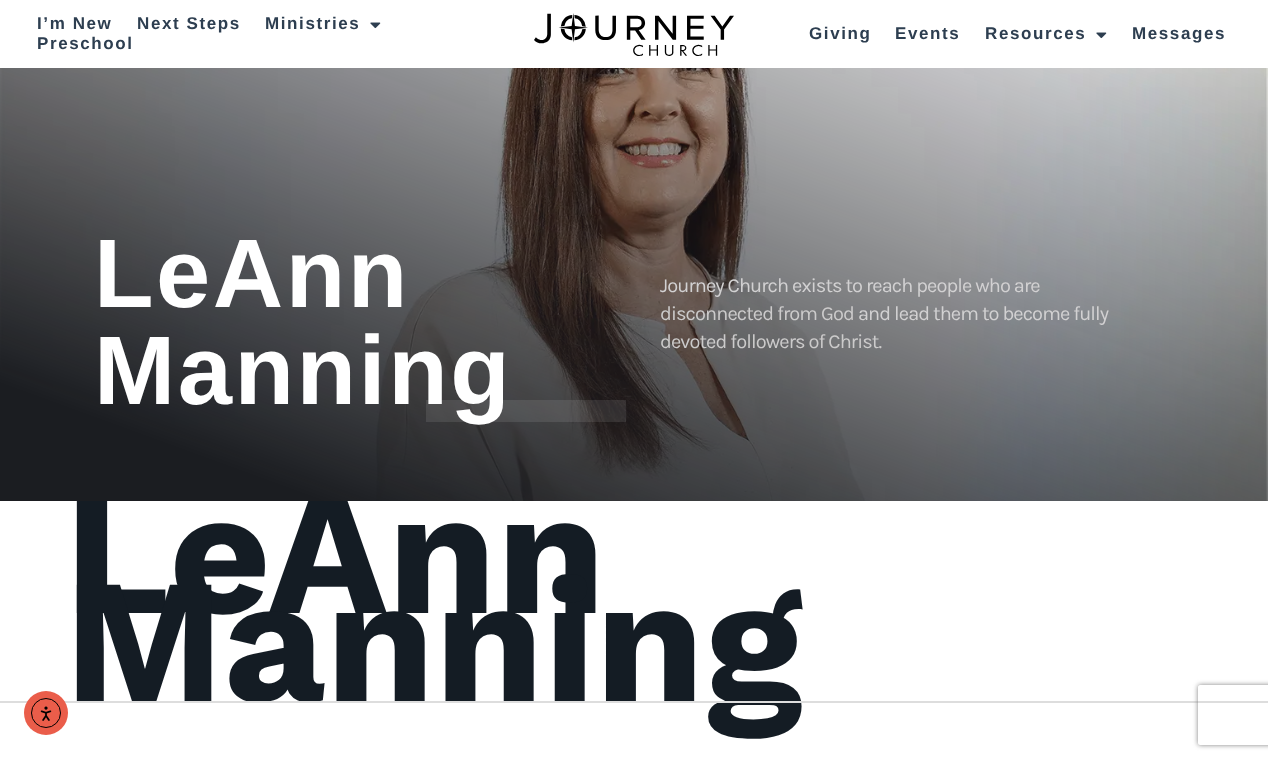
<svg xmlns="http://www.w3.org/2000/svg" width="1268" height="759">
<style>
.a{font:bold 17px Liberation Sans;letter-spacing:1.6px;fill:#2d3e50}
.b{font:bold 176px Work Sans;fill:#141c24}
.c{font:20px Karla;letter-spacing:-0.9px;fill:#cccbcb}
.d{font:20px Karla;letter-spacing:-0.9px;fill:#d2d1d2}
.e{font:bold 97.5px Liberation Sans;letter-spacing:2.5px;fill:#fff}
</style>
<defs>
<clipPath id="clip1"><path d="M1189 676h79v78h-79zm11 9h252c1 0 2 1 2 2v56c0 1-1 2-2 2h-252c-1 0-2-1-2-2v-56c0-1 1-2 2-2z" clip-rule="evenodd"/></clipPath>
</defs>
<rect width="100%" height="100%" fill="#fff"/>
<image href="1.png" x="370" y="22" width="11" height="7"/>
<image href="2.png" x="534" y="13" width="200" height="43"/>
<image href="1.png" x="1096" y="32" width="11" height="7"/>
<text class="a" x="37" y="29">I’m New</text>
<text class="a" x="137" y="29">Next Steps</text>
<text class="a" x="265" y="29">Ministries</text>
<text class="a" x="37" y="49">Preschool</text>
<text class="a" x="809" y="39">Giving</text>
<text class="a" x="895" y="39">Events</text>
<text class="a" x="985" y="39">Resources</text>
<text class="a" x="1132" y="39">Messages</text>
<text class="b" x="64" y="613">LeAnn</text>
<image href="3.png" x="0" y="68" width="1268" height="433"/>
<text class="c" x="660" y="348">devoted followers of Christ.</text>
<text class="d" x="858" y="320">and lead them to become fully</text>
<text class="c" x="660" y="320">disconnected from God</text>
<text class="d" x="660" y="292">Journey Church exists to reach people who are</text>
<path fill="#f7f7f71a" d="M426 400h200v22H426z"/>
<text class="e" x="94" y="404">Manning</text>
<text class="e" x="94" y="307">LeAnn</text>
<text class="b" x="64" y="701">Manning</text>
<path fill="#ddd" d="M0 701h1268v2H0z"/>
<circle fill="#ea5d4a" cx="46" cy="713" r="22"/>
<circle fill="none" stroke="#000" cx="46" cy="713" r="14.5"/>
<image href="4.png" x="40" y="706" width="12" height="15"/>
<g clip-path="url(#clip1)">
<rect fill="#808080" filter="blur(2.5px)" x="1198" y="685" width="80" height="60" rx="2"/>
</g>
</svg>
